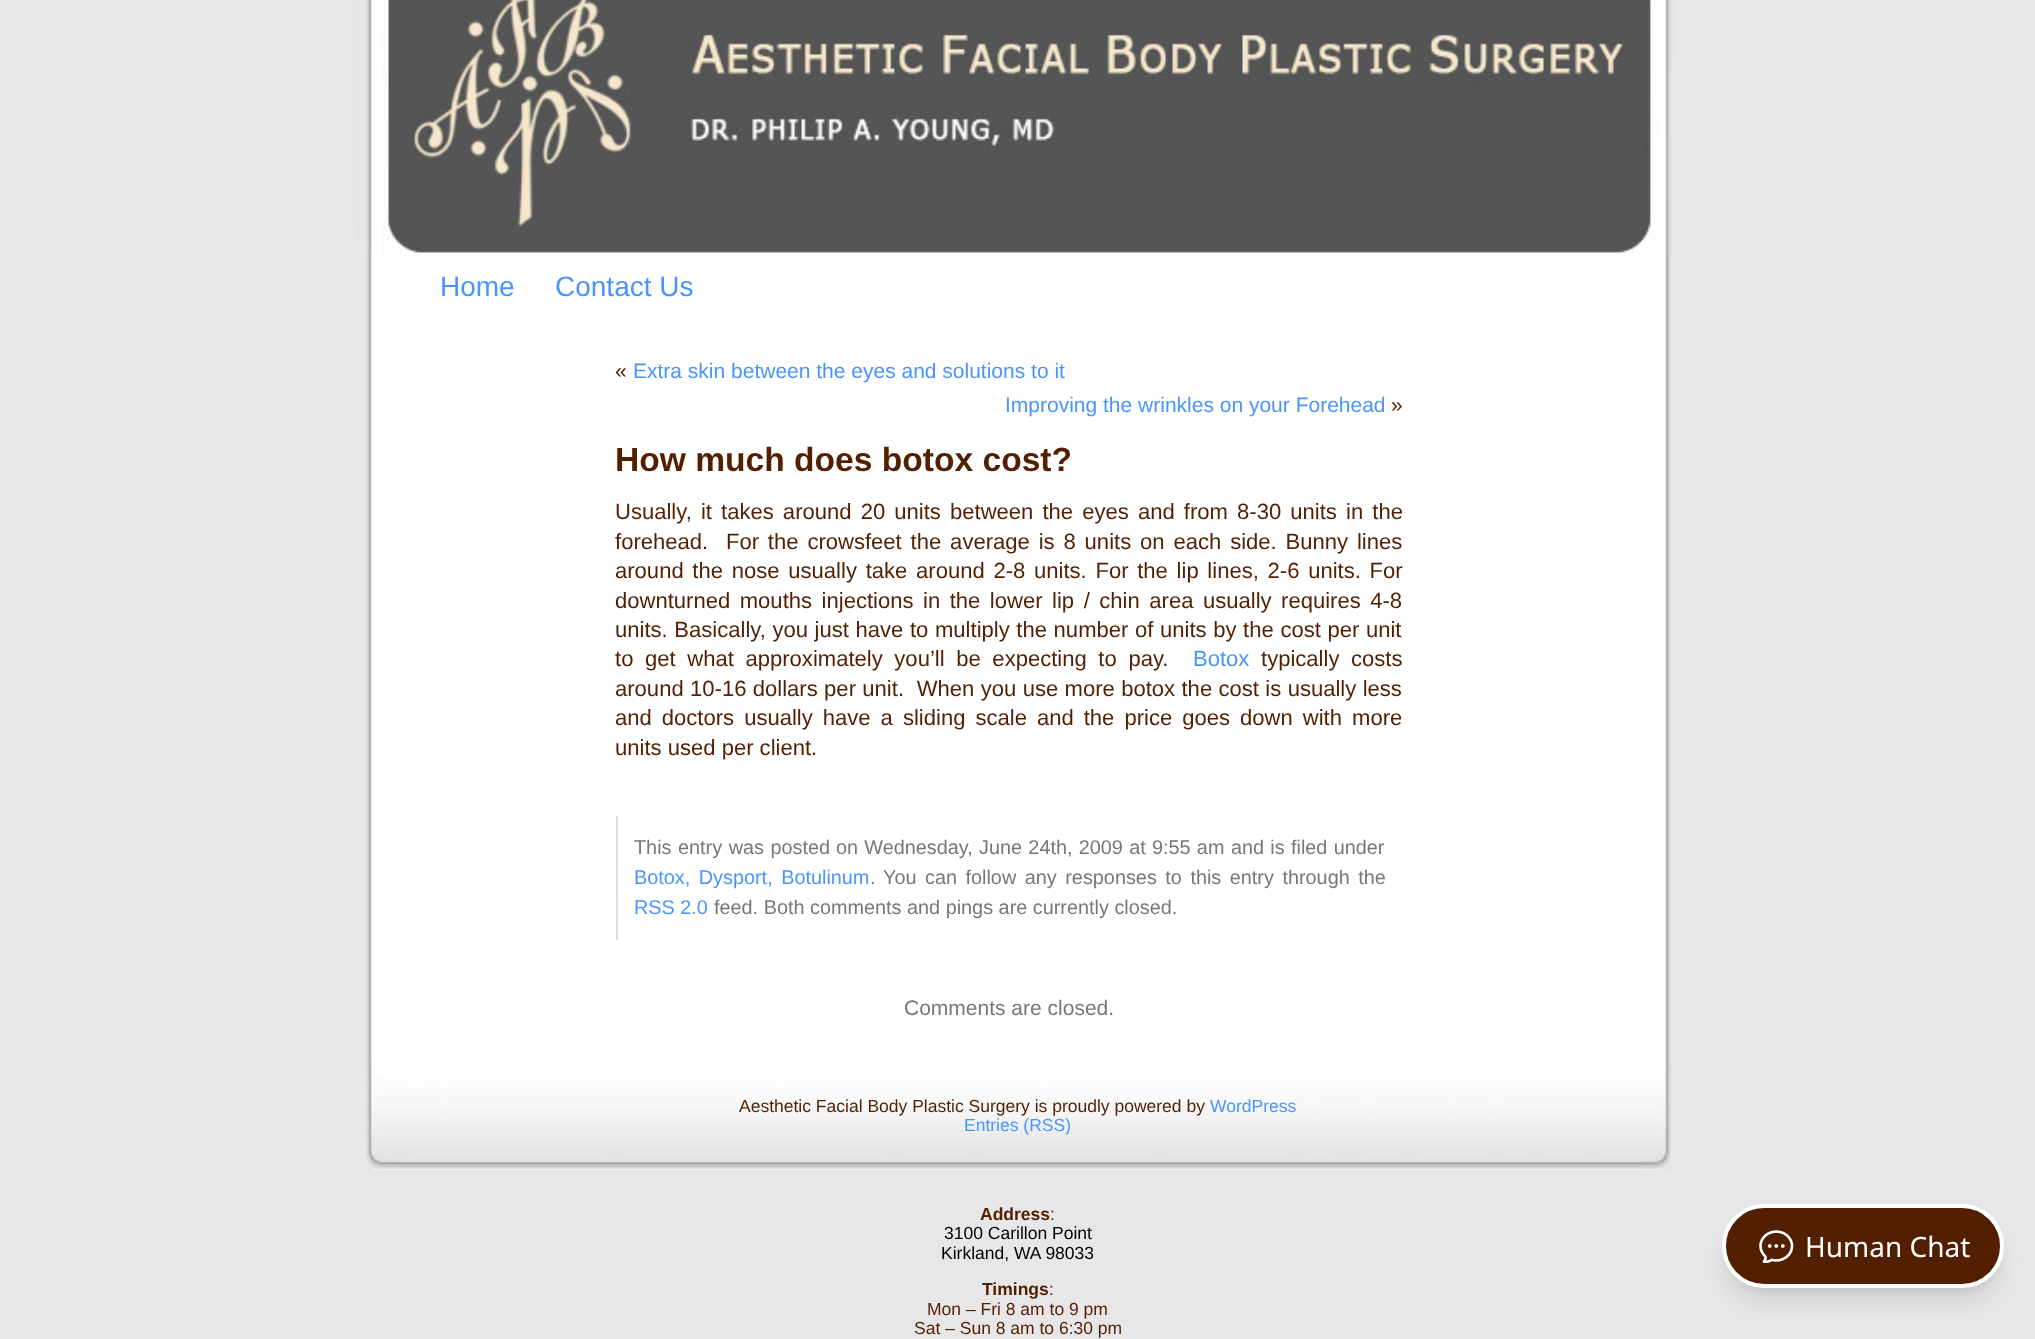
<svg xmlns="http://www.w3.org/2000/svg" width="2035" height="1339">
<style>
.a{font:28px Liberation Sans;fill:#4995ff}
.b{font:21px Liberation Sans;fill:#521f00}
.c{font:21px Liberation Sans;fill:#4995ff}
.d{font:bold 33.6px Liberation Sans;fill:#521f00}
.e{font:22.05px Liberation Sans;fill:#521f00}
.f{font:22.05px Liberation Sans;fill:#4995ff}
.g{font:19.85px Liberation Sans;fill:#777}
.h{font:19.85px Liberation Sans;fill:#4995ff}
.i{font:21px Liberation Sans;fill:#777}
.j{font:17.5px Liberation Sans;fill:#521f00}
.k{font:17.5px Liberation Sans;fill:#4995ff}
.l{font:bold 17.5px Liberation Sans;fill:#521f00}
.m{font:17.5px Liberation Sans;fill:#000}
.n{font:28px Noto Sans;fill:#fff}
</style>
<rect width="100%" height="100%" fill="#e7e7e7"/>
<image href="1.png" x="366" y="254" width="1305" height="916"/>
<image href="2.png" x="355" y="0" width="1327" height="254"/>
<path fill="#ddd" d="M616 816h2v124H616z"/>
<path fill="#e7e7e7" d="M366 1061h1305v108H366z"/>
<image href="3.png" x="366" y="1061" width="1305" height="108"/>
<rect fill="#0000000d" filter="blur(5px)" x="1726" y="1215" width="274" height="77" rx="38.5"/>
<rect fill="#0000001a" filter="blur(13px)" x="1727" y="1227" width="272" height="73" rx="36.5"/>
<rect fill="#521f00" stroke="#fff" stroke-width="4" x="1724" y="1206" width="278" height="80" rx="40"/>
<image href="4.png" x="1759" y="1230" width="35" height="33"/>
<text class="a" x="440" y="296">Home</text>
<text class="a" x="555" y="296">Contact Us</text>
<text class="b" x="615" y="378">«</text>
<text class="c" x="633" y="378">Extra skin between the eyes and solutions to it</text>
<text class="c" x="1005" y="412">Improving the wrinkles on your Forehead</text>
<text class="b" x="1391" y="412">»</text>
<text class="d" x="615" y="471">How much does botox cost?</text>
<text class="e" x="615" y="519" word-spacing="3">Usually, it takes around 20 units between the eyes and from 8-30 units in the</text>
<text class="e" xml:space="preserve" x="615" y="549" word-spacing="2.75">forehead.  For the crowsfeet the average is 8 units on each side. Bunny lines</text>
<text class="e" x="615" y="578" word-spacing="2.6">around the nose usually take around 2-8 units. For the lip lines, 2-6 units. For</text>
<text class="e" x="615" y="608" word-spacing="3.4">downturned mouths injections in the lower lip / chin area usually requires 4-8</text>
<text class="e" x="615" y="637" word-spacing="0.5">units. Basically, you just have to multiply the number of units by the cost per unit</text>
<text class="e" x="615" y="666" word-spacing="5.5">to get what approximately you’ll be expecting to pay.</text>
<text class="f" x="1193" y="666">Botox</text>
<text class="e" x="1261" y="666" word-spacing="5.5">typically costs</text>
<text class="e" xml:space="preserve" x="615" y="696" word-spacing="0.25">around 10-16 dollars per unit.  When you use more botox the cost is usually less</text>
<text class="e" x="615" y="725" word-spacing="3.9">and doctors usually have a sliding scale and the price goes down with more</text>
<text class="e" x="615" y="755">units used per client.</text>
<text class="g" x="634" y="854" word-spacing="1">This entry was posted</text>
<text class="g" x="836" y="854" word-spacing="0.75">on Wednesday, June 24th, 2009 at 9:55 am</text>
<text class="g" x="1231" y="854" word-spacing="0.75">and is filed under</text>
<text class="h" x="634" y="884" word-spacing="3">Botox, Dysport, Botulinum</text>
<text class="g" x="870" y="884">.</text>
<text class="g" x="883" y="884" word-spacing="3">You can follow any responses to this entry through the</text>
<text class="h" x="634" y="914">RSS 2.0</text>
<text class="g" x="714" y="914">feed. Both comments and pings are currently closed.</text>
<text class="i" x="904" y="1015">Comments are closed.</text>
<text class="j" x="739" y="1112">Aesthetic Facial Body Plastic Surgery is proudly powered by</text>
<text class="k" x="1210" y="1112">WordPress</text>
<text class="k" x="964" y="1131">Entries (RSS)</text>
<text class="l" x="980" y="1220">Address</text>
<text class="j" x="1050" y="1220">:</text>
<text class="m" x="944" y="1239">3100 Carillon Point</text>
<text class="m" x="941" y="1259">Kirkland, WA 98033</text>
<text class="n" x="1805" y="1257">Human Chat</text>
<text class="l" x="982" y="1295">Timings</text>
<text class="j" x="1049" y="1295">:</text>
<text class="j" x="927" y="1315">Mon – Fri 8 am to 9 pm</text>
<text class="j" x="914" y="1334">Sat – Sun 8 am to 6:30 pm</text>
</svg>
